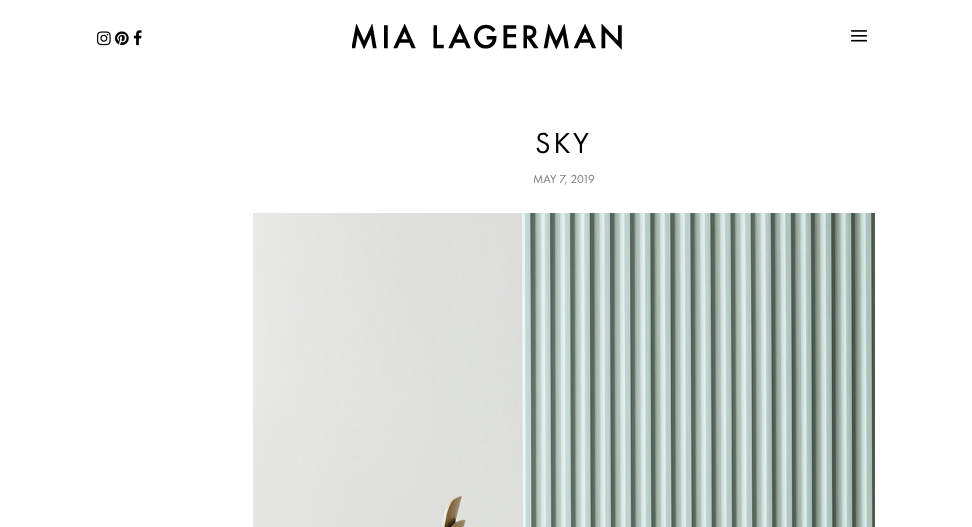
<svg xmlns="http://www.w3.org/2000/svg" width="972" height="527">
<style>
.a{font:30px Futura PT;letter-spacing:3px;fill:#000}
.b{font:12px Futura PT;fill:#7b7b7b}
</style>
<rect width="100%" height="100%" fill="#fff"/>
<image href="1.png" x="97" y="31" width="14" height="15"/>
<image href="2.png" x="115" y="31" width="14" height="15"/>
<image href="3.png" x="133" y="30" width="9" height="16"/>
<image href="4.png" x="352" y="24" width="270" height="26"/>
<image href="5.png" x="850" y="30" width="18" height="12"/>
<image href="6.png" x="253" y="213" width="622" height="314"/>
<text class="a" x="535" y="153">SKY</text>
<text class="b" x="533" y="183">MAY 7, 2019</text>
</svg>
